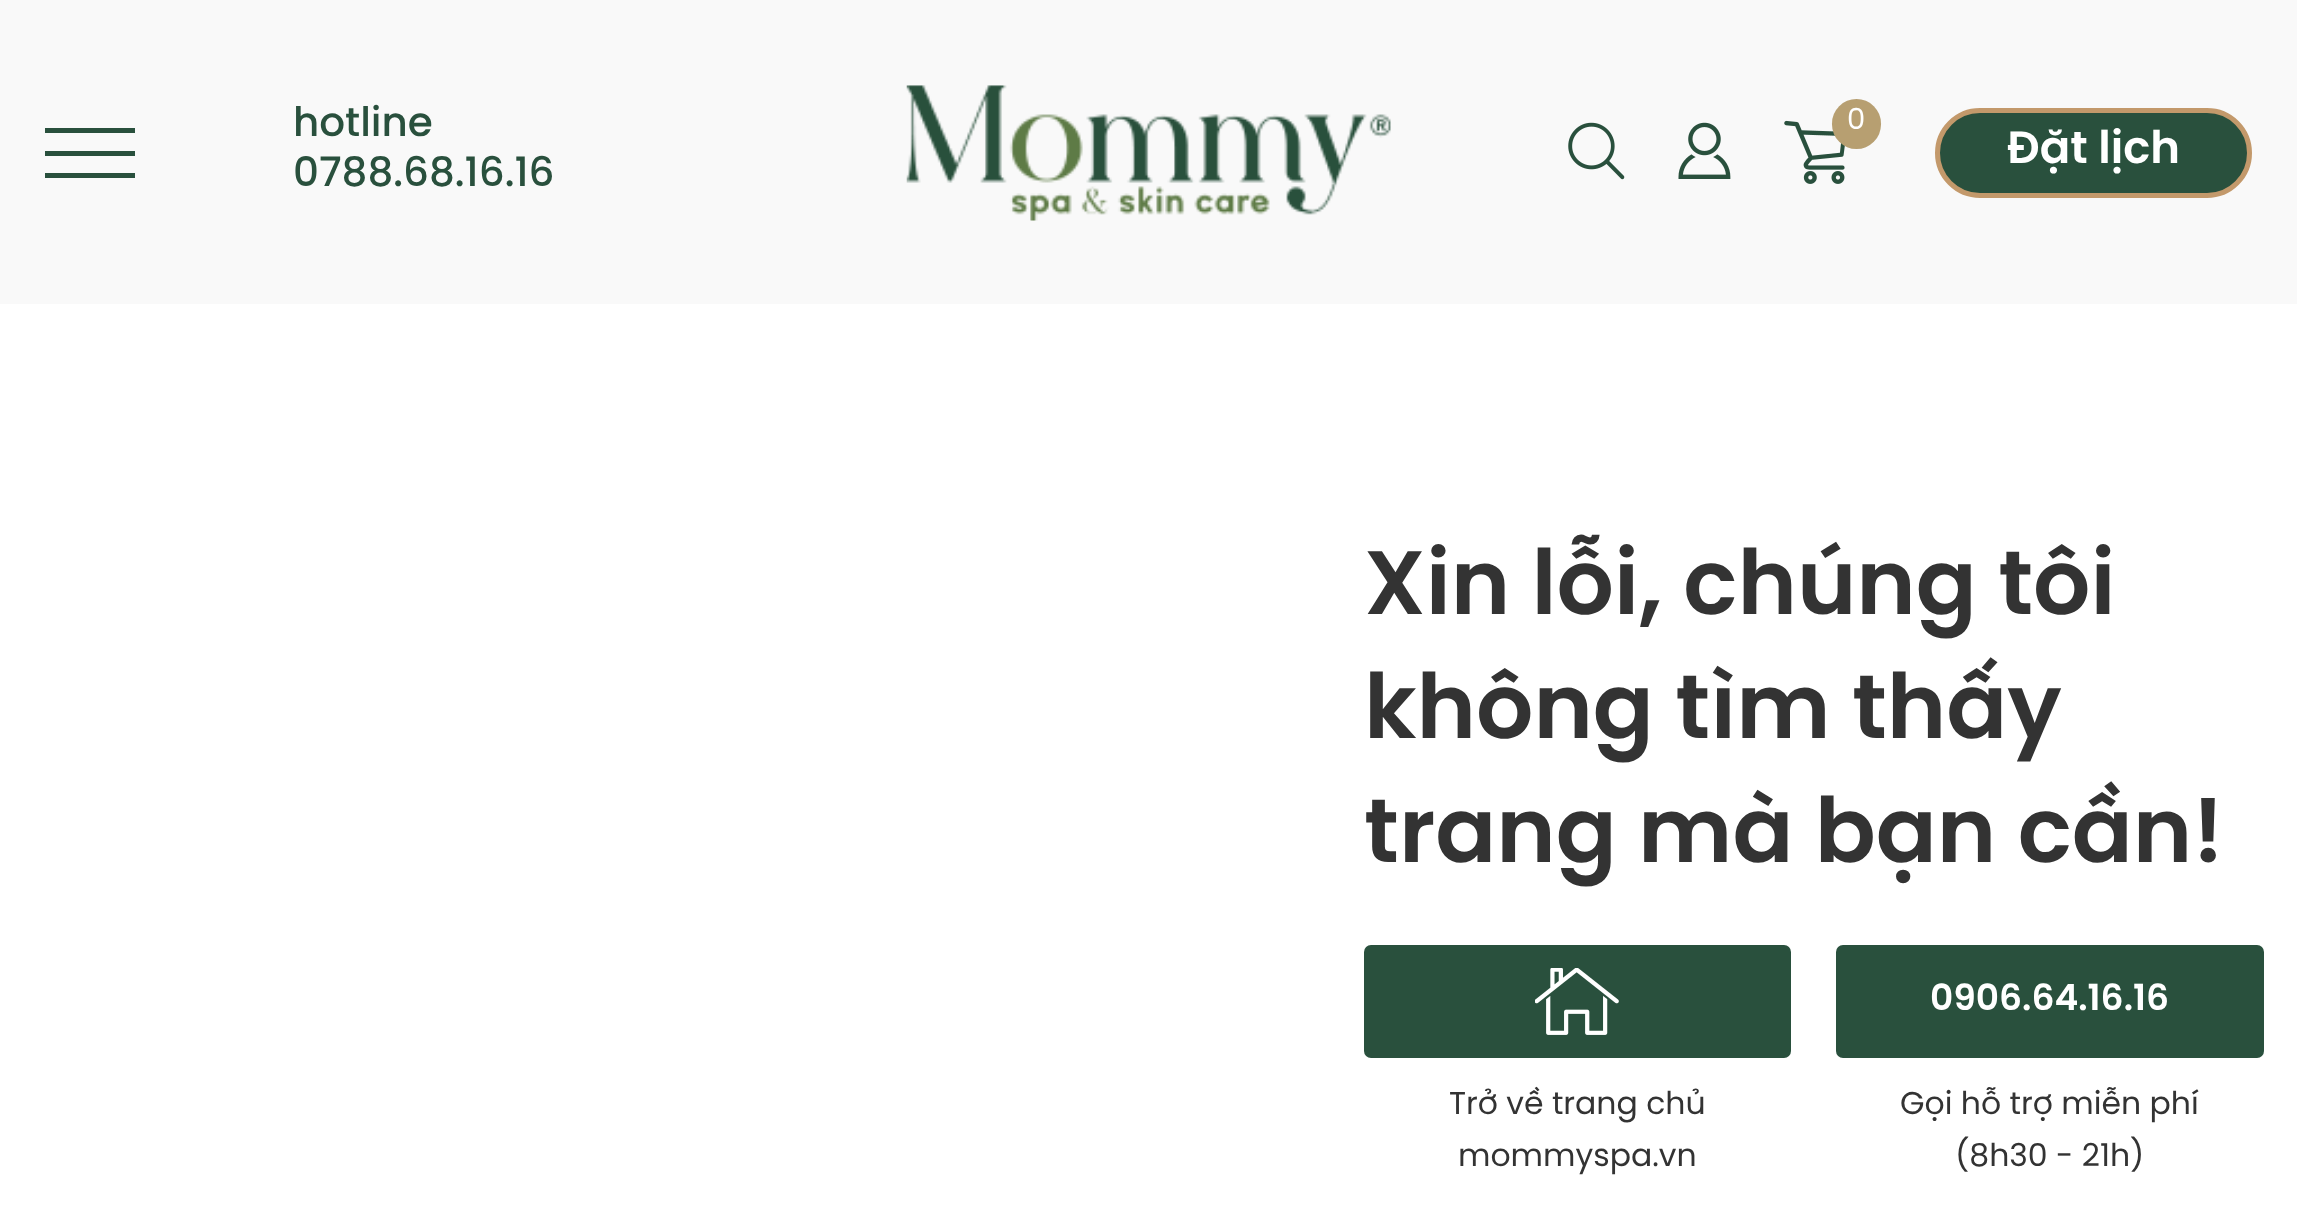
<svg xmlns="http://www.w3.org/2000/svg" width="2297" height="1205">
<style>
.a{font:500 40.5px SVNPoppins;fill:#29503d}
.b{font:29px SVNPoppins;fill:#fff}
.c{font:600 45px SVNPoppins;fill:#fff}
.d{font:600 90px SVNPoppins;fill:#333}
.e{font:31.5px SVNPoppins;fill:#333}
.f{font:600 36px SVNPoppins;fill:#fff}
</style>
<rect width="100%" height="100%" fill="#fff"/>
<path fill="#f9f9f9" d="M0 0h2297v304H0z"/>
<path fill="#29503d" d="M45 151h90v5H45z"/>
<path fill="#29503d" d="M45 128h90v5H45z"/>
<path fill="#29503d" d="M45 173h90v5H45z"/>
<image href="1.png" x="906" y="85" width="485" height="136"/>
<image href="2.png" x="1784" y="120" width="61" height="64"/>
<rect fill="#b79f71" x="1832" y="99" width="49" height="50" rx="24.5"/>
<image href="3.png" x="1568" y="122" width="57" height="58"/>
<image href="4.png" x="1678" y="122" width="53" height="57"/>
<rect fill="#29503d" stroke="#c3996b" stroke-width="5" x="1937.5" y="110.5" width="312" height="85" rx="42.5"/>
<rect fill="#29503d" x="1364" y="945" width="427" height="113" rx="7"/>
<image href="5.png" x="1535" y="968" width="84" height="67"/>
<rect fill="#29503d" x="1836" y="945" width="428" height="113" rx="7"/>
<text class="a" x="293" y="136">hotline</text>
<text class="a" x="293" y="186">0788.68.16.16</text>
<text class="b" x="1847" y="129">0</text>
<text class="c" x="2007" y="163">Đặt lịch</text>
<text class="d" x="1364" y="614">Xin lỗi, chúng tôi</text>
<text class="d" x="1364" y="738">không tìm thấy</text>
<text class="d" x="1364" y="862">trang mà bạn cần!</text>
<text class="e" x="1449" y="1114">Trở về trang chủ</text>
<text class="e" x="1458" y="1166">mommyspa.vn</text>
<text class="f" x="1930" y="1010">0906.64.16.16</text>
<text class="e" x="1900" y="1114">Gọi hỗ trợ miễn phí</text>
<text class="e" x="1955" y="1166">(8h30 - 21h)</text>
</svg>
